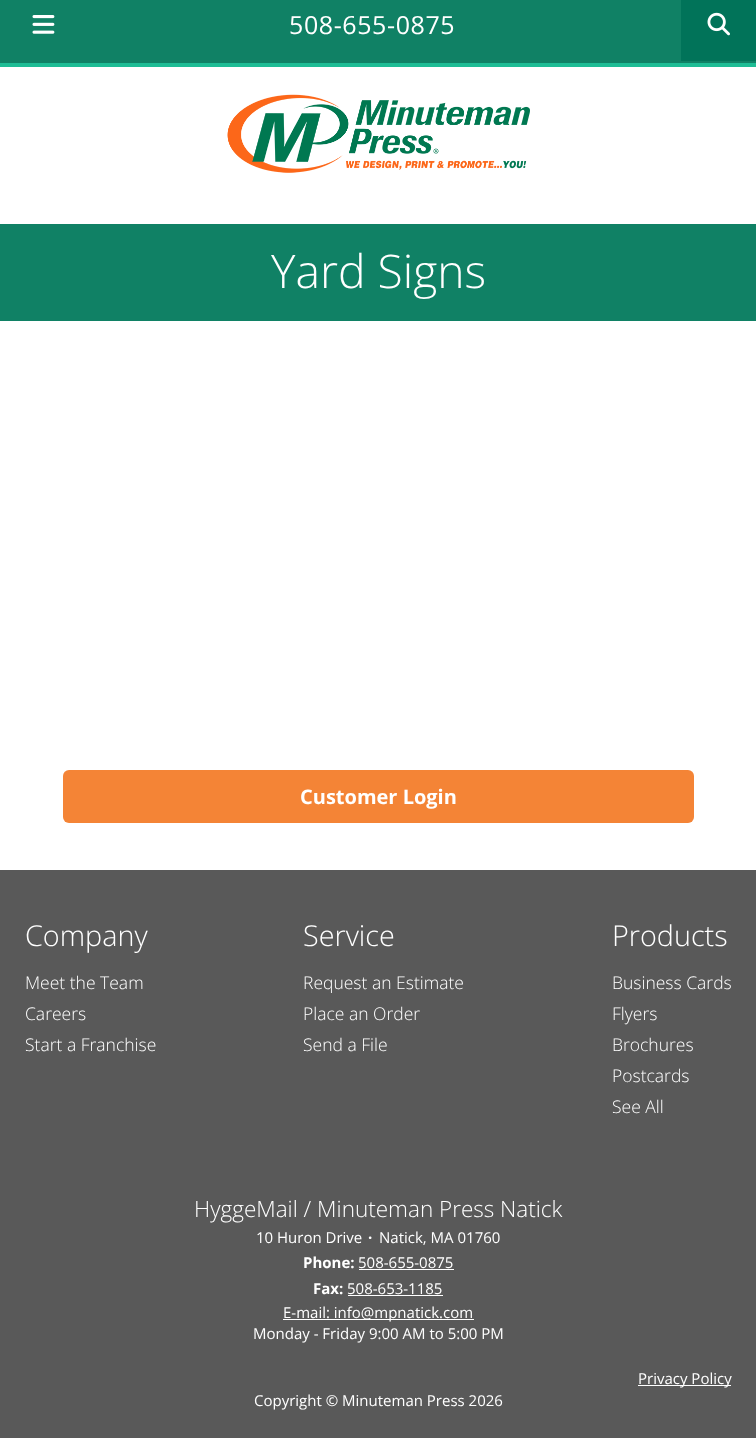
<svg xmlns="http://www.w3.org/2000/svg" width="756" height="1450">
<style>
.a{font:25px Open Sans;letter-spacing:0.6px;fill:#fff}
.b{font:300 46.25px Open Sans;fill:#fff}
.c{font:bold 20px Open Sans;fill:#fff}
.d{font:300 28.75px Open Sans;fill:#fff}
.e{font:300 17.5px Open Sans;fill:#fff}
.f{font:300 22.5px Open Sans;fill:#fff}
.g{font:15px Open Sans;fill:#fff}
.h{font:bold 15px Open Sans;fill:#fff}
</style>
<rect width="100%" height="100%" fill="#fff"/>
<path fill="#108165" d="M0 0h756v63H0z"/>
<path fill="#1ebd95" d="M0 63h756v4H0z"/>
<image href="1.png" x="32" y="15" width="23" height="19"/>
<path fill="#017359" d="M681 0h75v61H681z"/>
<image href="2.png" x="707" y="12" width="23" height="24"/>
<image href="3.png" x="227" y="94" width="303" height="79"/>
<path fill="#108165" d="M0 224h756v97H0z"/>
<rect fill="#f48436" x="63" y="770" width="631" height="53" rx="6"/>
<path fill="#595959" d="M0 870h756v568H0z"/>
<path fill="#fff" d="M359 1269h95v1H359z"/>
<path fill="#fff" d="M348 1295h95v1H348z"/>
<path fill="#fff" d="M283 1319h191v1H283z"/>
<path fill="#fff" d="M638 1385h93v1H638z"/>
<text class="a" x="289" y="34">508-655-0875</text>
<text class="b" x="271" y="288">Yard Signs</text>
<text class="c" x="300" y="804">Customer Login</text>
<text class="d" x="25" y="946">Company</text>
<text class="e" x="25" y="989">Meet the Team</text>
<text class="e" x="25" y="1020">Careers</text>
<text class="e" x="25" y="1051">Start a Franchise</text>
<text class="d" x="303" y="946">Service</text>
<text class="e" x="303" y="989">Request an Estimate</text>
<text class="e" x="303" y="1020">Place an Order</text>
<text class="e" x="303" y="1051">Send a File</text>
<text class="d" x="612" y="946">Products</text>
<text class="e" x="612" y="989">Business Cards</text>
<text class="e" x="612" y="1020">Flyers</text>
<text class="e" x="612" y="1051">Brochures</text>
<text class="e" x="612" y="1082">Postcards</text>
<text class="e" x="612" y="1113">See All</text>
<text class="f" x="194" y="1217">HyggeMail / Minuteman Press Natick</text>
<text class="g" x="256" y="1243">10 Huron Drive</text>
<text class="h" x="368" y="1243">·</text>
<text class="g" x="379" y="1243">Natick, MA 01760</text>
<text class="h" x="303" y="1268">Phone:</text>
<text class="g" x="358" y="1268">508-655-0875</text>
<text class="h" x="313" y="1294">Fax:</text>
<text class="g" x="347" y="1294">508-653-1185</text>
<text class="g" x="283" y="1318">E-mail: info@mpnatick.com</text>
<text class="g" x="253" y="1339">Monday - Friday 9:00 AM to 5:00 PM</text>
<text class="g" x="638" y="1384">Privacy Policy</text>
<text class="g" x="254" y="1406">Copyright © Minuteman Press 2026</text>
</svg>
